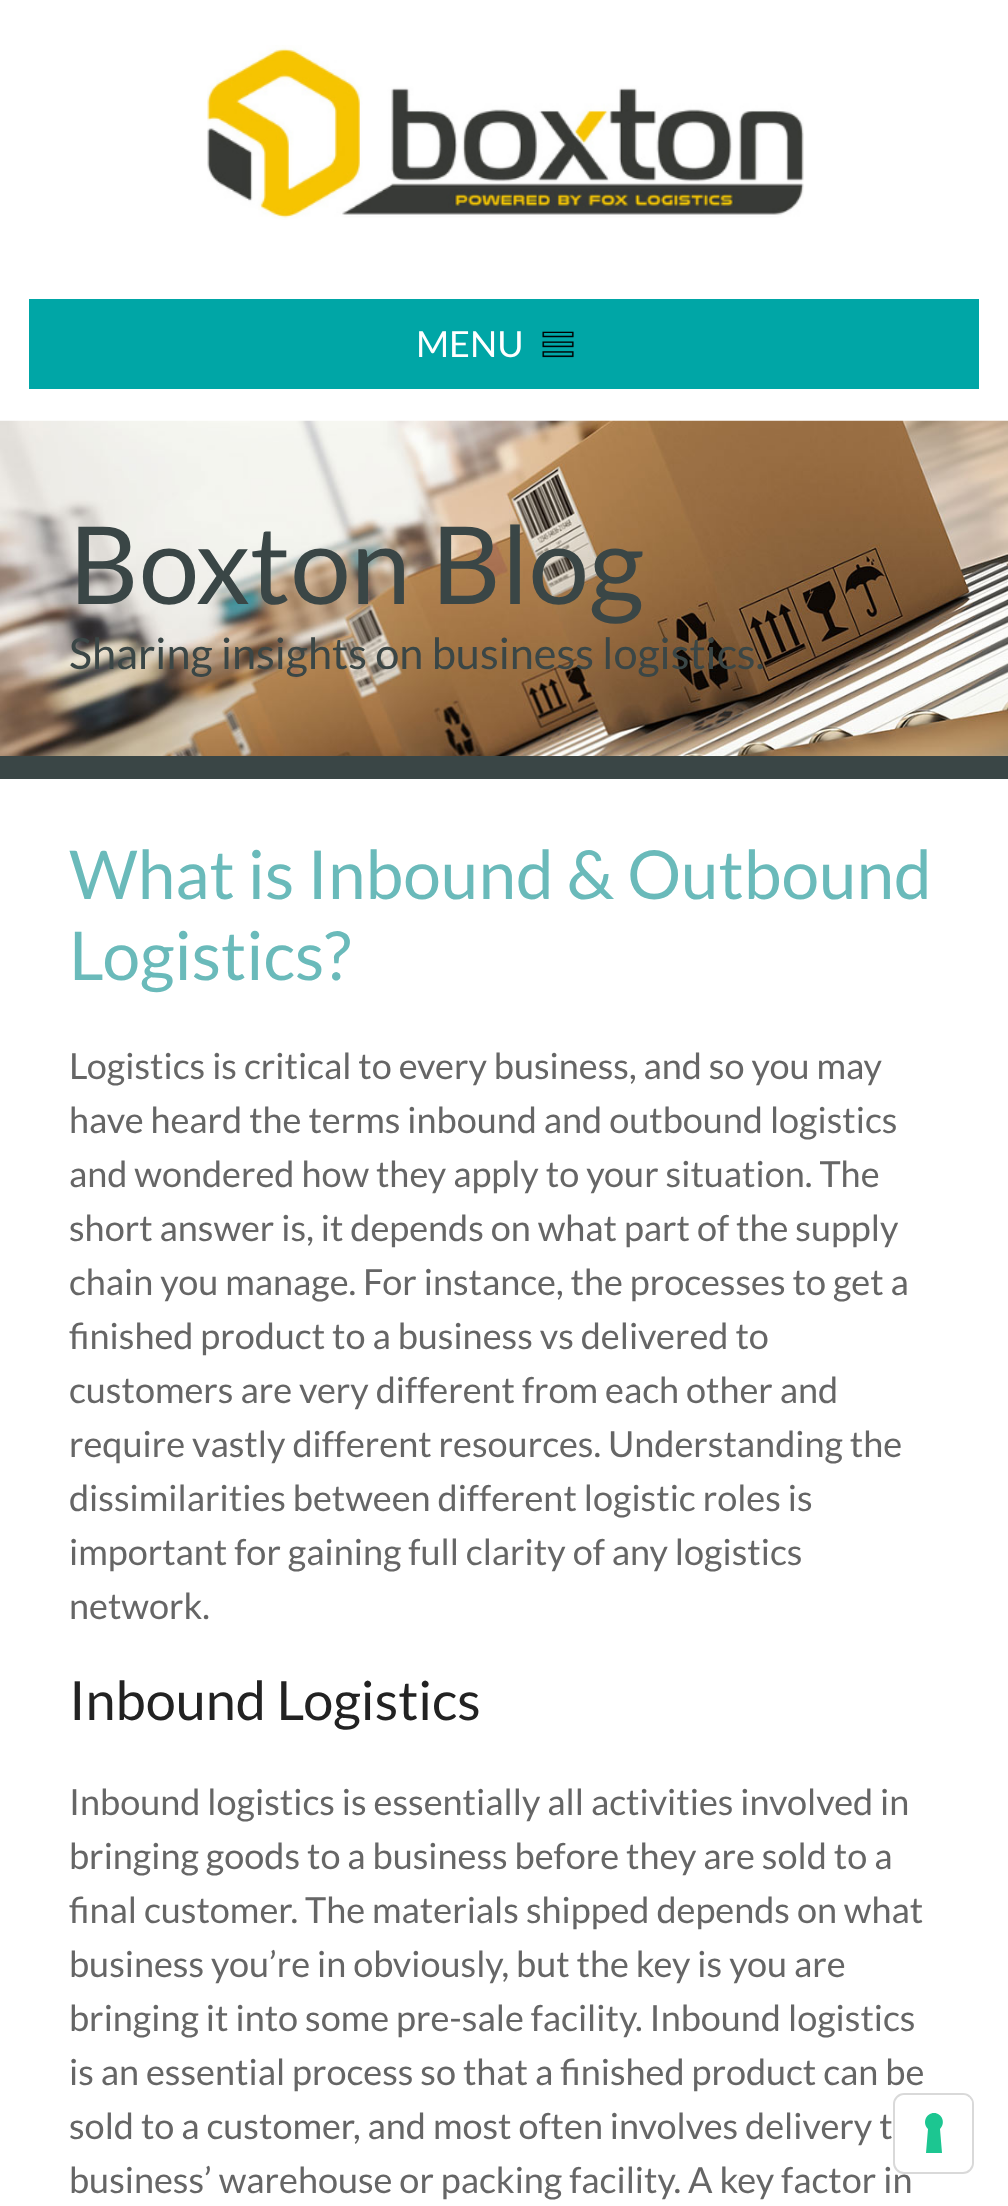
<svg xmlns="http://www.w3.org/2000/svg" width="1008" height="2206">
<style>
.a{font:36px Lato;fill:#fff}
.b{font:108px Lato;fill:#3a4646}
.c{font:43.25px Lato;fill:#3a4646}
.d{font:67.5px Lato;fill:#6ababa}
.e{font:36px Lato;fill:#666}
.f{font:54px Lato;fill:#222}
</style>
<rect width="100%" height="100%" fill="#fff"/>
<image href="1.png" x="207" y="45" width="597" height="175"/>
<path fill="#00a6a6" d="M29 299h950v90H29z"/>
<image href="2.png" x="542" y="331" width="32" height="27"/>
<image href="3.png" x="0" y="420" width="1008" height="336"/>
<path fill="#3a4646" d="M0 756h1008v23H0z"/>
<text class="a" x="416" y="357">MENU</text>
<text class="b" x="69" y="604">Boxton Blog</text>
<text class="c" x="69" y="669">Sharing insights on business logistics.</text>
<text class="d" x="69" y="899">What is Inbound &amp; Outbound</text>
<text class="d" x="69" y="980">Logistics?</text>
<text class="e" x="69" y="1079">Logistics is critical to every business, and so you may</text>
<text class="e" x="69" y="1133">have heard the terms inbound and outbound logistics</text>
<text class="e" x="69" y="1187">and wondered how they apply to your situation. The</text>
<text class="e" x="69" y="1241">short answer is, it depends on what part of the supply</text>
<text class="e" x="69" y="1295">chain you manage. For instance, the processes to get a</text>
<text class="e" x="69" y="1349">finished product to a business vs delivered to</text>
<text class="e" x="69" y="1403">customers are very different from each other and</text>
<text class="e" x="69" y="1457">require vastly different resources. Understanding the</text>
<text class="e" x="69" y="1511">dissimilarities between different logistic roles is</text>
<text class="e" x="69" y="1565">important for gaining full clarity of any logistics</text>
<text class="e" x="69" y="1619">network.</text>
<text class="f" x="69" y="1720">Inbound Logistics</text>
<text class="e" x="69" y="1815">Inbound logistics is essentially all activities involved in</text>
<text class="e" x="69" y="1869">bringing goods to a business before they are sold to a</text>
<text class="e" x="69" y="1923">final customer. The materials shipped depends on what</text>
<text class="e" x="69" y="1977">business you’re in obviously, but the key is you are</text>
<text class="e" x="69" y="2031">bringing it into some pre-sale facility. Inbound logistics</text>
<text class="e" x="69" y="2085">is an essential process so that a finished product can be</text>
<text class="e" x="69" y="2139">sold to a customer, and most often involves delivery t</text>
<text class="e" x="69" y="2193">business’ warehouse or packing facility. A key factor in</text>
<rect fill="none" stroke="#00000026" stroke-width="2" x="894" y="2094" width="79" height="79" rx="10"/>
<rect fill="#fff" x="896" y="2095" width="76" height="76" rx="9"/>
<path fill="#1cc691" fill-rule="evenodd" d="M934 2113c8 0 12 10 6 16l2 24h-16l2-24c-6-6-2-16 6-16z"/>
</svg>
